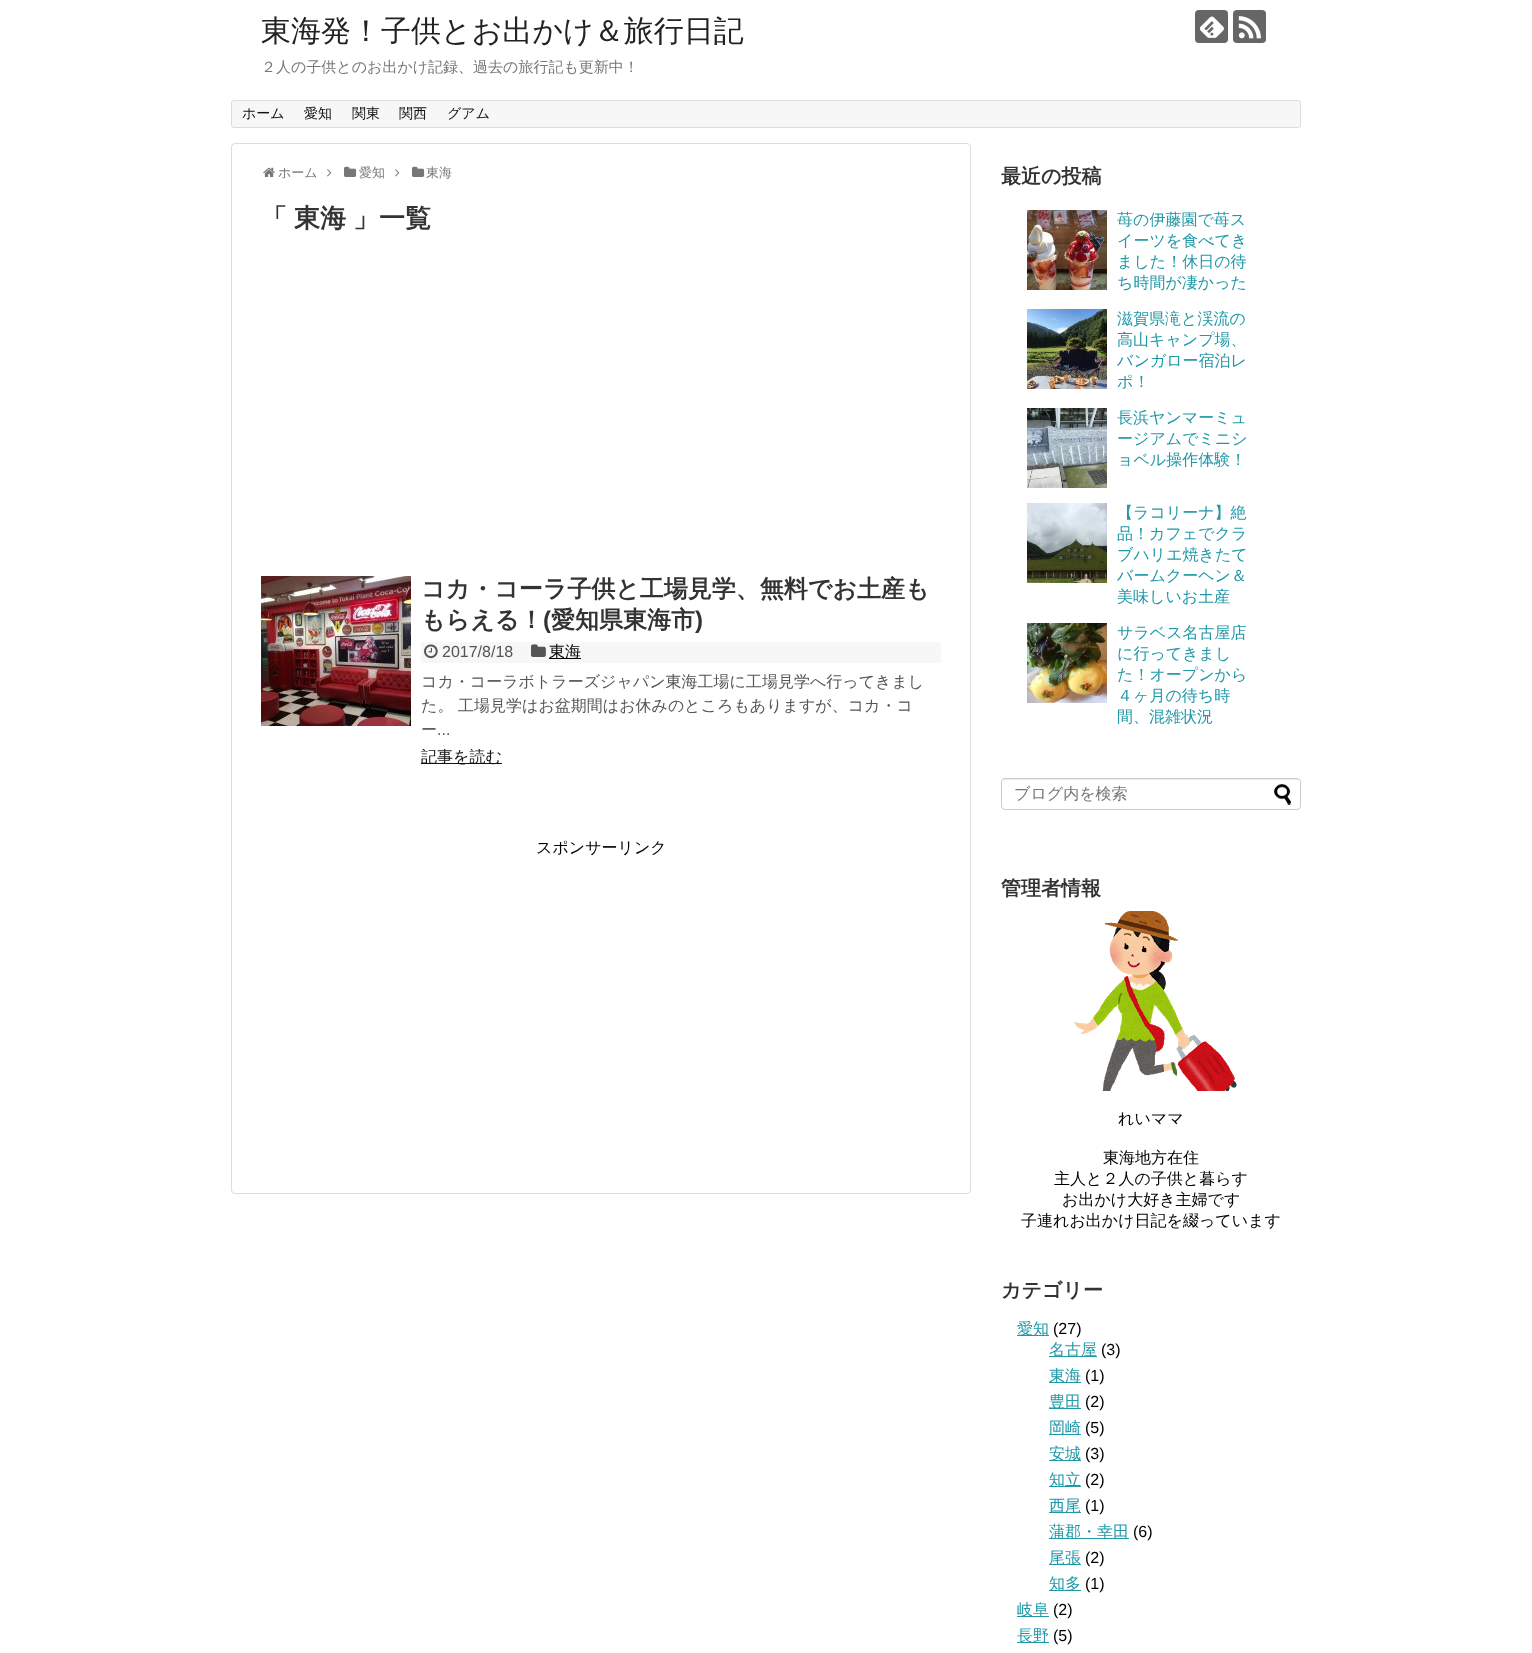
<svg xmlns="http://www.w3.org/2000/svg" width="1532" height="1653">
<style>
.a{font:500 30px WenQuanYi Zen Hei;fill:#222}
.b{font:500 15px WenQuanYi Zen Hei;fill:#777}
.c{font:500 14px WenQuanYi Zen Hei;fill:#111}
.d{font:500 13px WenQuanYi Zen Hei;fill:#777}
.e{font:bold 26px WenQuanYi Zen Hei;fill:#333}
.f{font:bold 24px WenQuanYi Zen Hei;fill:#333}
.g{font:bold 24px Liberation Sans;fill:#333}
.h{font:16px Liberation Sans;fill:#555}
.i{font:500 16px WenQuanYi Zen Hei;fill:#000}
.j{font:500 16px WenQuanYi Zen Hei;fill:#555}
.k{font:500 16px WenQuanYi Zen Hei;fill:#111}
.l{font:bold 20px WenQuanYi Zen Hei;fill:#333}
.m{font:500 16px WenQuanYi Zen Hei;fill:#2098a8}
.n{font:500 16px WenQuanYi Zen Hei;fill:#777}
.o{font:16px Liberation Sans;fill:#000}
</style>
<rect width="100%" height="100%" fill="#fff"/>
<rect fill="#666" x="1195" y="10" width="33" height="33" rx="4"/>
<image href="1.png" x="1199" y="16" width="25" height="22"/>
<rect fill="#666" x="1233" y="10" width="33" height="33" rx="4"/>
<image href="2.png" x="1238" y="16" width="23" height="23"/>
<rect fill="#f7f7f7" stroke="#ddd" x="231.5" y="100.5" width="1069" height="27" rx="2.5"/>
<rect fill="none" stroke="#ddd" x="231.5" y="143.5" width="739" height="1050" rx="3.5"/>
<image href="3.png" x="263" y="167" width="12" height="10"/>
<image href="4.png" x="327" y="169" width="5" height="8"/>
<image href="5.png" x="344" y="166" width="13" height="11"/>
<image href="4.png" x="395" y="169" width="5" height="8"/>
<image href="5.png" x="412" y="166" width="13" height="11"/>
<image href="6.png" x="261" y="576" width="150" height="150"/>
<path fill="#f7f7f7" d="M421 642h520v21H421z"/>
<image href="7.png" x="424" y="644" width="14" height="15"/>
<image href="8.png" x="531" y="644" width="15" height="13"/>
<path fill="#000" d="M549 658h32v1H549z"/>
<path fill="#111" d="M421 763h81v1H421z"/>
<image href="9.png" x="1027" y="210" width="80" height="80"/>
<image href="10.png" x="1027" y="309" width="80" height="80"/>
<image href="11.png" x="1027" y="408" width="80" height="80"/>
<image href="12.png" x="1027" y="503" width="80" height="80"/>
<image href="13.png" x="1027" y="623" width="80" height="80"/>
<path fill="#ececec" d="M1005 780h292c2 0 3 1 3 3l-1-3l-1-1h-293c-2 0-3 2-3 4c0-2 1-3 3-3z"/>
<rect fill="none" stroke="#ccc" x="1001.5" y="778.5" width="299" height="31" rx="3.5"/>
<image href="14.png" x="1274" y="784" width="17" height="21"/>
<image href="15.png" x="1074" y="911" width="163" height="180"/>
<path fill="#2098a8" d="M1017 1335h32v1H1017z"/>
<path fill="#2098a8" d="M1049 1356h48v1H1049z"/>
<path fill="#2098a8" d="M1049 1382h32v1H1049z"/>
<path fill="#2098a8" d="M1049 1408h32v1H1049z"/>
<path fill="#2098a8" d="M1049 1434h32v1H1049z"/>
<path fill="#2098a8" d="M1049 1460h32v1H1049z"/>
<path fill="#2098a8" d="M1049 1486h32v1H1049z"/>
<path fill="#2098a8" d="M1049 1512h32v1H1049z"/>
<path fill="#2098a8" d="M1049 1538h80v1H1049z"/>
<path fill="#2098a8" d="M1049 1564h32v1H1049z"/>
<path fill="#2098a8" d="M1049 1590h32v1H1049z"/>
<path fill="#2098a8" d="M1017 1616h32v1H1017z"/>
<path fill="#2098a8" d="M1017 1642h32v1H1017z"/>
<text class="a" x="261" y="41">東海発！子供とお出かけ＆旅行日記</text>
<text class="b" x="261" y="72">２人の子供とのお出かけ記録、過去の旅行記も更新中！</text>
<text class="c" x="242" y="118">ホーム</text>
<text class="c" x="304" y="118">愛知</text>
<text class="c" x="352" y="118">関東</text>
<text class="c" x="399" y="118">関西</text>
<text class="c" x="447" y="118">グアム</text>
<text class="d" x="278" y="177">ホーム</text>
<text class="d" x="359" y="177">愛知</text>
<text class="d" x="426" y="177">東海</text>
<text class="e" x="261" y="227">「</text>
<text class="e" x="294" y="227">東海</text>
<text class="e" x="353" y="227">」一覧</text>
<text class="f" x="421" y="597">コカ・コーラ子供と工場見学、無料でお土産も</text>
<text class="f" x="421" y="628">もらえる！</text>
<text class="g" x="543" y="628">(</text>
<text class="f" x="551" y="628">愛知県東海市</text>
<text class="g" x="695" y="628">)</text>
<text class="h" x="442" y="657">2017/8/18</text>
<text class="i" x="549" y="657">東海</text>
<text class="j" x="421" y="687">コカ・コーラボトラーズジャパン東海工場に工場見学へ行ってきまし</text>
<text class="j" x="421" y="711">た。</text>
<text class="j" x="458" y="711">工場見学はお盆期間はお休みのところもありますが、コカ・コ</text>
<text class="j" x="421" y="735">ー</text>
<text class="h" x="437" y="735">...</text>
<text class="k" x="421" y="762">記事を読む</text>
<text class="i" x="536" y="853">スポンサーリンク</text>
<text class="l" x="1001" y="183">最近の投稿</text>
<text class="m" x="1117" y="225">苺の伊藤園で苺ス</text>
<text class="m" x="1117" y="246">イーツを食べてき</text>
<text class="m" x="1117" y="267">ました！休日の待</text>
<text class="m" x="1117" y="288">ち時間が凄かった</text>
<text class="m" x="1117" y="324">滋賀県滝と渓流の</text>
<text class="m" x="1117" y="345">高山キャンプ場、</text>
<text class="m" x="1117" y="366">バンガロー宿泊レ</text>
<text class="m" x="1117" y="387">ポ！</text>
<text class="m" x="1117" y="423">長浜ヤンマーミュ</text>
<text class="m" x="1117" y="444">ージアムでミニシ</text>
<text class="m" x="1117" y="465">ョベル操作体験！</text>
<text class="m" x="1117" y="518">【ラコリーナ】絶</text>
<text class="m" x="1117" y="539">品！カフェでクラ</text>
<text class="m" x="1117" y="560">ブハリエ焼きたて</text>
<text class="m" x="1117" y="581">バームクーヘン＆</text>
<text class="m" x="1117" y="602">美味しいお土産</text>
<text class="m" x="1117" y="638">サラベス名古屋店</text>
<text class="m" x="1117" y="659">に行ってきまし</text>
<text class="m" x="1117" y="680">た！オープンから</text>
<text class="m" x="1117" y="701">４ヶ月の待ち時</text>
<text class="m" x="1117" y="722">間、混雑状況</text>
<text class="n" x="1014" y="799">ブログ内を検索</text>
<text class="l" x="1001" y="895">管理者情報</text>
<text class="i" x="1118" y="1124">れいママ</text>
<text class="i" x="1103" y="1163">東海地方在住</text>
<text class="i" x="1054" y="1184">主人と２人の子供と暮らす</text>
<text class="i" x="1062" y="1205">お出かけ大好き主婦です</text>
<text class="i" x="1021" y="1226">子連れお出かけ日記を綴っています</text>
<text class="l" x="1001" y="1297">カテゴリー</text>
<text class="m" x="1017" y="1334">愛知</text>
<text class="o" x="1053" y="1334">(27)</text>
<text class="m" x="1049" y="1355">名古屋</text>
<text class="o" x="1101" y="1355">(3)</text>
<text class="m" x="1049" y="1381">東海</text>
<text class="o" x="1085" y="1381">(1)</text>
<text class="m" x="1049" y="1407">豊田</text>
<text class="o" x="1085" y="1407">(2)</text>
<text class="m" x="1049" y="1433">岡崎</text>
<text class="o" x="1085" y="1433">(5)</text>
<text class="m" x="1049" y="1459">安城</text>
<text class="o" x="1085" y="1459">(3)</text>
<text class="m" x="1049" y="1485">知立</text>
<text class="o" x="1085" y="1485">(2)</text>
<text class="m" x="1049" y="1511">西尾</text>
<text class="o" x="1085" y="1511">(1)</text>
<text class="m" x="1049" y="1537">蒲郡・幸田</text>
<text class="o" x="1133" y="1537">(6)</text>
<text class="m" x="1049" y="1563">尾張</text>
<text class="o" x="1085" y="1563">(2)</text>
<text class="m" x="1049" y="1589">知多</text>
<text class="o" x="1085" y="1589">(1)</text>
<text class="m" x="1017" y="1615">岐阜</text>
<text class="o" x="1053" y="1615">(2)</text>
<text class="m" x="1017" y="1641">長野</text>
<text class="o" x="1053" y="1641">(5)</text>
</svg>
